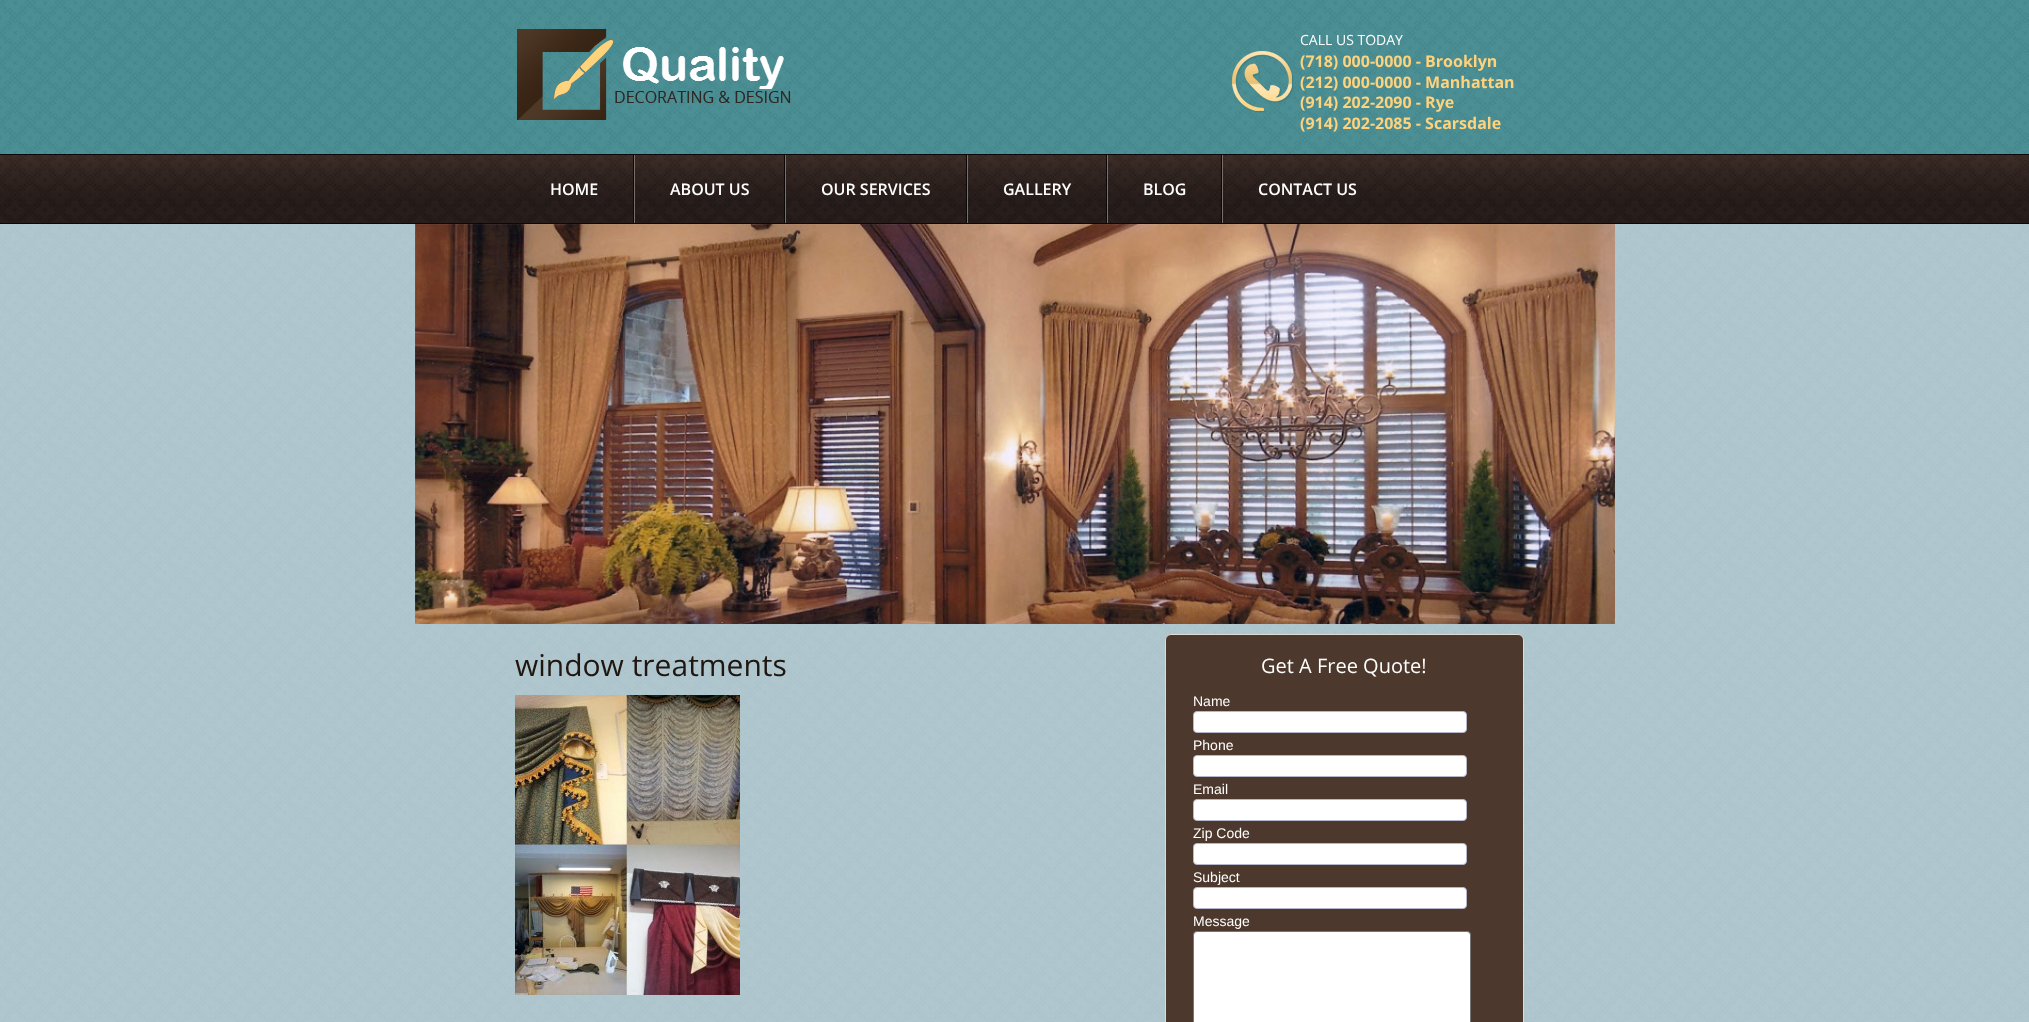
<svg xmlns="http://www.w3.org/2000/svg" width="2029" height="1022">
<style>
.a{font:14px Open Sans;fill:#fff}
.b{font:bold 16px Open Sans;fill:#ffd27c}
.c{font:600 16px Open Sans;fill:#fff}
.d{font:30px Open Sans;fill:#1f1610}
.e{font:20px Open Sans;fill:#fff}
.f{font:14px Liberation Sans;fill:#fff}
</style>
<rect width="100%" height="100%" fill="#fff"/>
<image href="1.png" x="0" y="224" width="2029" height="798"/>
<image href="2.png" x="0" y="0" width="2029" height="154"/>
<image href="3.png" x="517" y="29" width="274" height="91"/>
<image href="4.png" x="1232" y="51" width="62" height="62"/>
<image href="5.png" x="0" y="155" width="2029" height="68"/>
<path fill="#0c0807" d="M0 154h2029v1H0z"/>
<path fill="#0c0807" d="M0 223h2029v1H0z"/>
<path fill="#0c0807" d="M633 155h1v68H633z"/>
<path fill="#0c0807" d="M784 155h1v68H784z"/>
<path fill="#7b6f6a" d="M634 155h1v68H634z"/>
<path fill="#0c0807" d="M966 155h1v68H966z"/>
<path fill="#7b6f6a" d="M785 155h1v68H785z"/>
<path fill="#0c0807" d="M1106 155h1v68H1106z"/>
<path fill="#7b6f6a" d="M967 155h1v68H967z"/>
<path fill="#0c0807" d="M1221 155h1v68H1221z"/>
<path fill="#7b6f6a" d="M1107 155h1v68H1107z"/>
<path fill="#7b6f6a" d="M1222 155h1v68H1222z"/>
<image href="6.png" x="415" y="224" width="1200" height="400"/>
<image href="7.png" x="515" y="695" width="225" height="300"/>
<rect fill="#4c382c" stroke="#dcdbdb" x="1165.5" y="634.5" width="358" height="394" rx="5.5"/>
<rect fill="#fff" stroke="#b5b8cb" x="1193.5" y="711.5" width="273" height="21" rx="3.5"/>
<rect fill="#fff" stroke="#b5b8cb" x="1193.5" y="755.5" width="273" height="21" rx="3.5"/>
<rect fill="#fff" stroke="#b5b8cb" x="1193.5" y="799.5" width="273" height="21" rx="3.5"/>
<rect fill="#fff" stroke="#b5b8cb" x="1193.5" y="843.5" width="273" height="21" rx="3.5"/>
<rect fill="#fff" stroke="#b5b8cb" x="1193.5" y="887.5" width="273" height="21" rx="3.5"/>
<rect fill="#fff" stroke="#767676" x="1193.5" y="931.5" width="277" height="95" rx="3.5"/>
<text class="a" x="1300" y="45">CALL US TODAY</text>
<text class="b" x="1300" y="67">(718) 000-0000 - Brooklyn</text>
<text class="b" x="1300" y="88">(212) 000-0000 - Manhattan</text>
<text class="b" x="1300" y="108">(914) 202-2090 - Rye</text>
<text class="b" x="1300" y="129">(914) 202-2085 - Scarsdale</text>
<text class="c" x="550" y="195">HOME</text>
<text class="c" x="670" y="195">ABOUT US</text>
<text class="c" x="821" y="195">OUR SERVICES</text>
<text class="c" x="1003" y="195">GALLERY</text>
<text class="c" x="1143" y="195">BLOG</text>
<text class="c" x="1258" y="195">CONTACT US</text>
<text class="d" x="515" y="676">window treatments</text>
<text class="e" x="1261" y="673">Get A Free Quote!</text>
<text class="f" x="1193" y="706">Name</text>
<text class="f" x="1193" y="750">Phone</text>
<text class="f" x="1193" y="794">Email</text>
<text class="f" x="1193" y="838">Zip Code</text>
<text class="f" x="1193" y="882">Subject</text>
<text class="f" x="1193" y="926">Message</text>
</svg>
